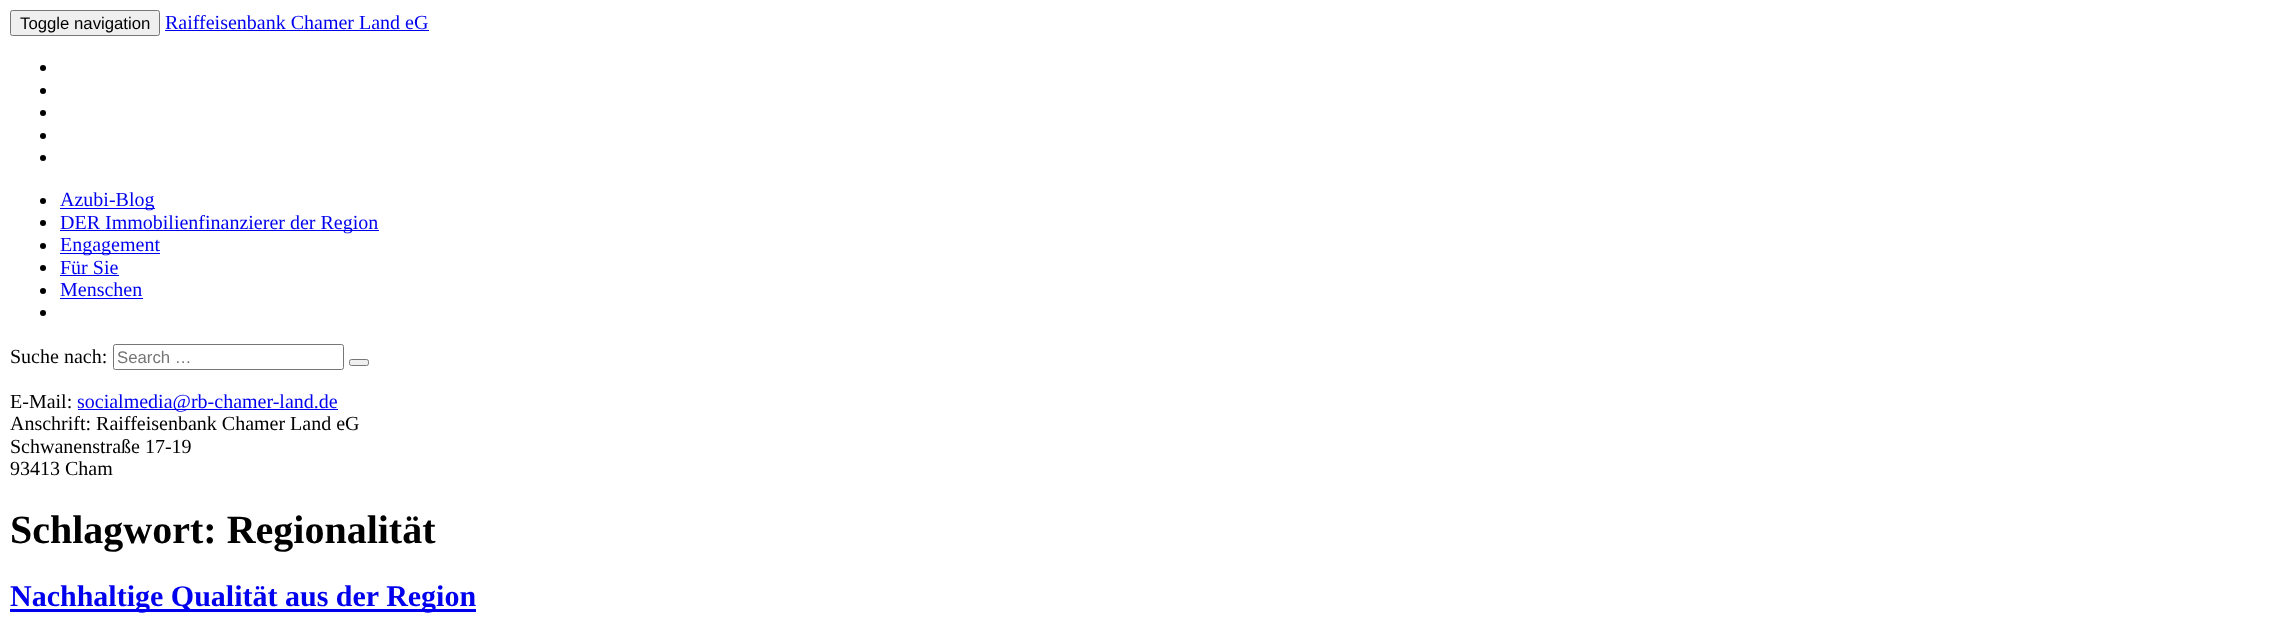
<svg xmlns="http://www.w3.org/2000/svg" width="2277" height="639">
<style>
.a{font:16.75px Liberation Sans;fill:#000}
.b{font:20px Liberation Serif;fill:#00e}
.c{font:20px Liberation Serif;fill:#000}
.d{font:16.75px Liberation Sans;fill:#757575}
.e{font:bold 40px Liberation Serif;fill:#000}
.f{font:bold 30px Liberation Serif;fill:#00e}
</style>
<rect width="100%" height="100%" fill="#fff"/>
<rect fill="#efefef" stroke="#767676" x="10.5" y="10.5" width="149" height="25" rx="2"/>
<path fill="#00e" d="M165 30h264v1H165z"/>
<circle fill="#000" cx="43" cy="68" r="3"/>
<circle fill="#000" cx="43" cy="91" r="3"/>
<circle fill="#000" cx="43" cy="113" r="3"/>
<circle fill="#000" cx="43" cy="136" r="3"/>
<circle fill="#000" cx="43" cy="158" r="3"/>
<circle fill="#000" cx="43" cy="201" r="3"/>
<path fill="#00e" d="M60 208h95v1H60z"/>
<circle fill="#000" cx="43" cy="223" r="3"/>
<path fill="#00e" d="M60 230h319v1H60z"/>
<circle fill="#000" cx="43" cy="246" r="3"/>
<path fill="#00e" d="M60 253h100v1H60z"/>
<circle fill="#000" cx="43" cy="268" r="3"/>
<path fill="#00e" d="M60 275h59v1H60z"/>
<circle fill="#000" cx="43" cy="291" r="3"/>
<path fill="#00e" d="M60 298h83v1H60z"/>
<circle fill="#000" cx="43" cy="313" r="3"/>
<rect fill="none" stroke="#767676" x="113.5" y="344.5" width="230" height="25" rx="2"/>
<rect fill="#efefef" stroke="#767676" x="349.5" y="359.5" width="19" height="6" rx="2"/>
<path fill="#00e" d="M78 409h260v1H78z"/>
<path fill="#00e" d="M10 609h466v3H10z"/>
<text class="a" x="20" y="29">Toggle navigation</text>
<text class="b" x="165" y="29">Raiffeisenbank Chamer Land eG</text>
<text class="b" x="60" y="206">Azubi-Blog</text>
<text class="b" x="60" y="229">DER Immobilienfinanzierer der Region</text>
<text class="b" x="60" y="251">Engagement</text>
<text class="b" x="60" y="274">Für Sie</text>
<text class="b" x="60" y="296">Menschen</text>
<text class="c" x="10" y="363">Suche nach:</text>
<text class="d" x="117" y="363">Search …</text>
<text class="c" x="10" y="408">E-Mail:</text>
<text class="b" x="77" y="408">socialmedia@rb-chamer-land.de</text>
<text class="c" x="10" y="430">Anschrift: Raiffeisenbank Chamer Land eG</text>
<text class="c" x="10" y="453">Schwanenstraße 17-19</text>
<text class="c" x="10" y="475">93413 Cham</text>
<text class="e" x="10" y="543">Schlagwort: Regionalität</text>
<text class="f" x="10" y="606">Nachhaltige Qualität aus der Region</text>
</svg>
